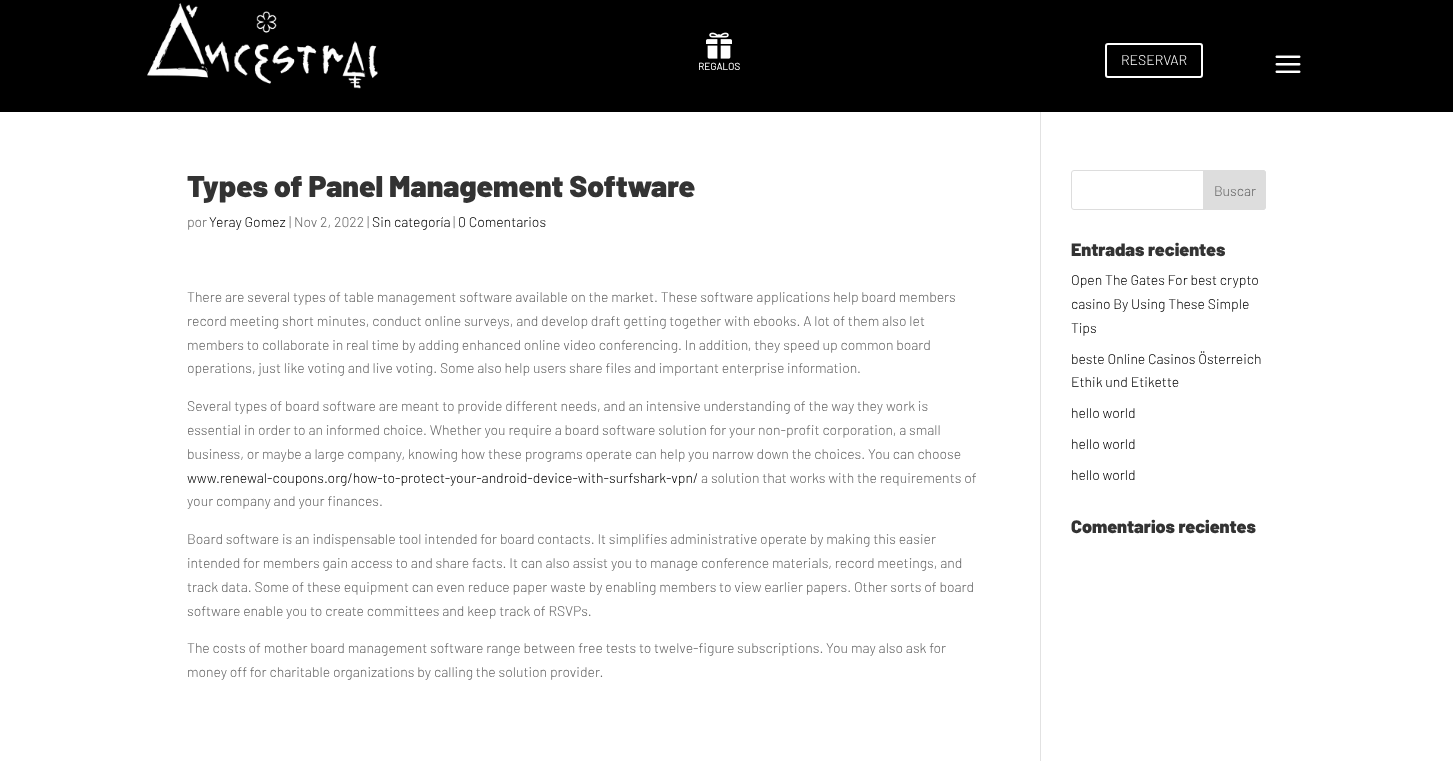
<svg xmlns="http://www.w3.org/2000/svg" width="1453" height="761">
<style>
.a{font:bold 10px Barlow;fill:#fff}
.b{font:300 14px Barlow;fill:#fff}
.c{font:900 30px Barlow;fill:#333}
.d{font:300 14px Barlow;fill:#666}
.e{font:300 14px Barlow;fill:#000}
.f{font:900 18px Barlow;fill:#333}
</style>
<rect width="100%" height="100%" fill="#fff"/>
<path fill="#000" d="M0 0h1453v112H0z"/>
<image href="1.png" x="147" y="3" width="231" height="86"/>
<image href="2.png" x="706" y="32" width="26" height="27"/>
<rect fill="none" stroke="#fff" stroke-width="2" x="1106" y="44" width="96" height="33" rx="2"/>
<image href="3.png" x="1275" y="55" width="26" height="18"/>
<path fill="#e2e2e2" d="M1040 112h1v649H1040z"/>
<rect fill="none" stroke="#ddd" x="1071.5" y="170.5" width="194" height="39" rx="2.5"/>
<path fill="#ddd" stroke="#ddd" d="M1203.5 170.5h59.5c1.5 0 2.5 1 2.5 2.5v34c0 1.5-1 2.5-2.5 2.5h-59.5z"/>
<text class="a" x="698" y="70">REGALOS</text>
<text class="b" x="1121" y="65">RESERVAR</text>
<text class="c" x="187" y="197">Types of Panel Management Software</text>
<text class="d" x="187" y="227">por</text>
<text class="e" x="209" y="227">Yeray Gomez</text>
<text class="d" x="289" y="227">| Nov 2, 2022 |</text>
<text class="e" x="372" y="227">Sin categoría</text>
<text class="d" x="453" y="227">|</text>
<text class="e" x="458" y="227">0 Comentarios</text>
<text class="d" x="187" y="302">There are several types of table management software available on the market. These software applications help board members</text>
<text class="d" x="187" y="326">record meeting short minutes, conduct online surveys, and develop draft getting together with ebooks. A lot of them also let</text>
<text class="d" x="187" y="350">members to collaborate in real time by adding enhanced online video conferencing. In addition, they speed up common board</text>
<text class="d" x="187" y="373">operations, just like voting and live voting. Some also help users share files and important enterprise information.</text>
<text class="d" x="187" y="411">Several types of board software are meant to provide different needs, and an intensive understanding of the way they work is</text>
<text class="d" x="187" y="435">essential in order to an informed choice. Whether you require a board software solution for your non-profit corporation, a small</text>
<text class="d" x="187" y="459">business, or maybe a large company, knowing how these programs operate can help you narrow down the choices. You can choose</text>
<text class="e" x="187" y="483">www.renewal-coupons.org/how-to-protect-your-android-device-with-surfshark-vpn/</text>
<text class="d" x="701" y="483">a solution that works with the requirements of</text>
<text class="d" x="187" y="506">your company and your finances.</text>
<text class="d" x="187" y="544">Board software is an indispensable tool intended for board contacts. It simplifies administrative operate by making this easier</text>
<text class="d" x="187" y="568">intended for members gain access to and share facts. It can also assist you to manage conference materials, record meetings, and</text>
<text class="d" x="187" y="592">track data. Some of these equipment can even reduce paper waste by enabling members to view earlier papers. Other sorts of board</text>
<text class="d" x="187" y="616">software enable you to create committees and keep track of RSVPs.</text>
<text class="d" x="187" y="653">The costs of mother board management software range between free tests to twelve-figure subscriptions. You may also ask for</text>
<text class="d" x="187" y="677">money off for charitable organizations by calling the solution provider.</text>
<text class="d" x="1214" y="196">Buscar</text>
<text class="f" x="1071" y="256">Entradas recientes</text>
<text class="e" x="1071" y="285">Open The Gates For best crypto</text>
<text class="e" x="1071" y="309">casino By Using These Simple</text>
<text class="e" x="1071" y="333">Tips</text>
<text class="e" x="1071" y="364">beste Online Casinos Österreich</text>
<text class="e" x="1071" y="387">Ethik und Etikette</text>
<text class="e" x="1071" y="418">hello world</text>
<text class="e" x="1071" y="449">hello world</text>
<text class="e" x="1071" y="480">hello world</text>
<text class="f" x="1071" y="533">Comentarios recientes</text>
</svg>
